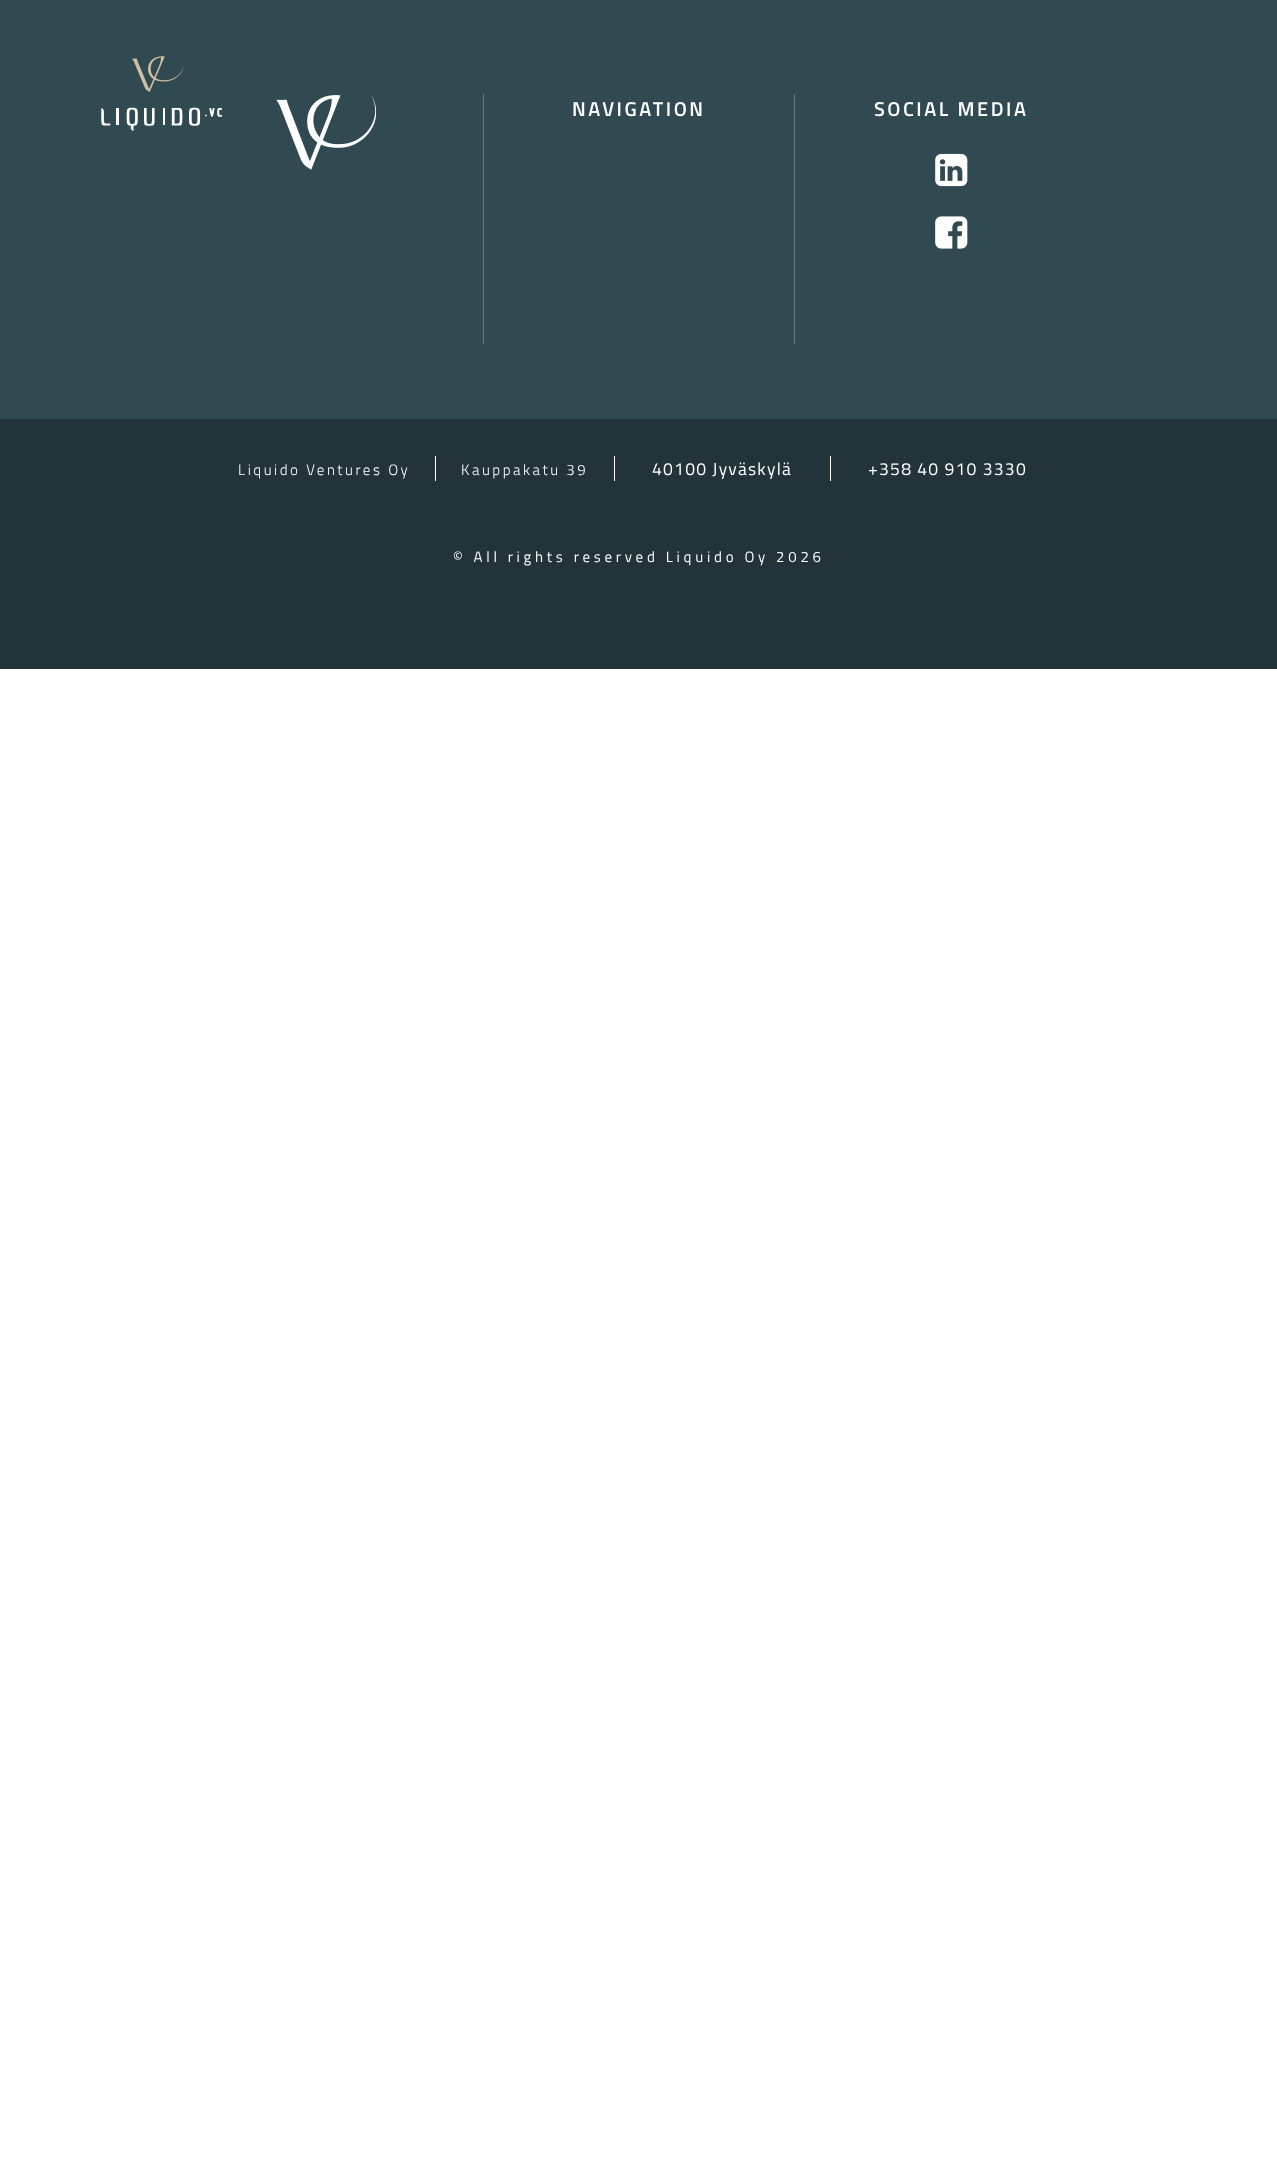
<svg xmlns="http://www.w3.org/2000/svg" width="1277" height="2180">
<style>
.a{font:600 20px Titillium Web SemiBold;letter-spacing:2.5px;fill:#fff}
.b{font:300 15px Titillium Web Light;letter-spacing:2.5px;fill:#fff}
.c{font:17.5px Titillium Web;letter-spacing:1.25px;fill:#fff}
.d{font:15px Titillium Web;letter-spacing:3.75px;fill:#fff}
</style>
<rect width="100%" height="100%" fill="#fff"/>
<path fill="#314a52" d="M0 0h1277v419H0z"/>
<image href="1.png" x="101" y="56" width="122" height="75"/>
<image href="2.png" x="276" y="94" width="100" height="76"/>
<path fill="#5a7c87" d="M794 94h1v250H794z"/>
<path fill="#5a7c87" d="M483 94h1v250H483z"/>
<image href="3.png" x="935" y="153" width="33" height="34"/>
<image href="4.png" x="935" y="216" width="33" height="33"/>
<path fill="#22343a" d="M0 419h1277v250H0z"/>
<path fill="#fff" d="M435 456h1v25H435z"/>
<path fill="#fff" d="M614 456h1v25H614z"/>
<path fill="#fff" d="M830 456h1v25H830z"/>
<text class="a" x="572" y="116">NAVIGATION</text>
<text class="a" x="874" y="116">SOCIAL MEDIA</text>
<text class="b" x="238" y="475">Liquido Ventures Oy</text>
<text class="b" x="461" y="475">Kauppakatu 39</text>
<text class="c" x="652" y="475">40100 Jyväskylä</text>
<text class="c" x="868" y="475">+358 40 910 3330</text>
<text class="d" x="453" y="562">© All rights reserved Liquido Oy 2026</text>
</svg>
